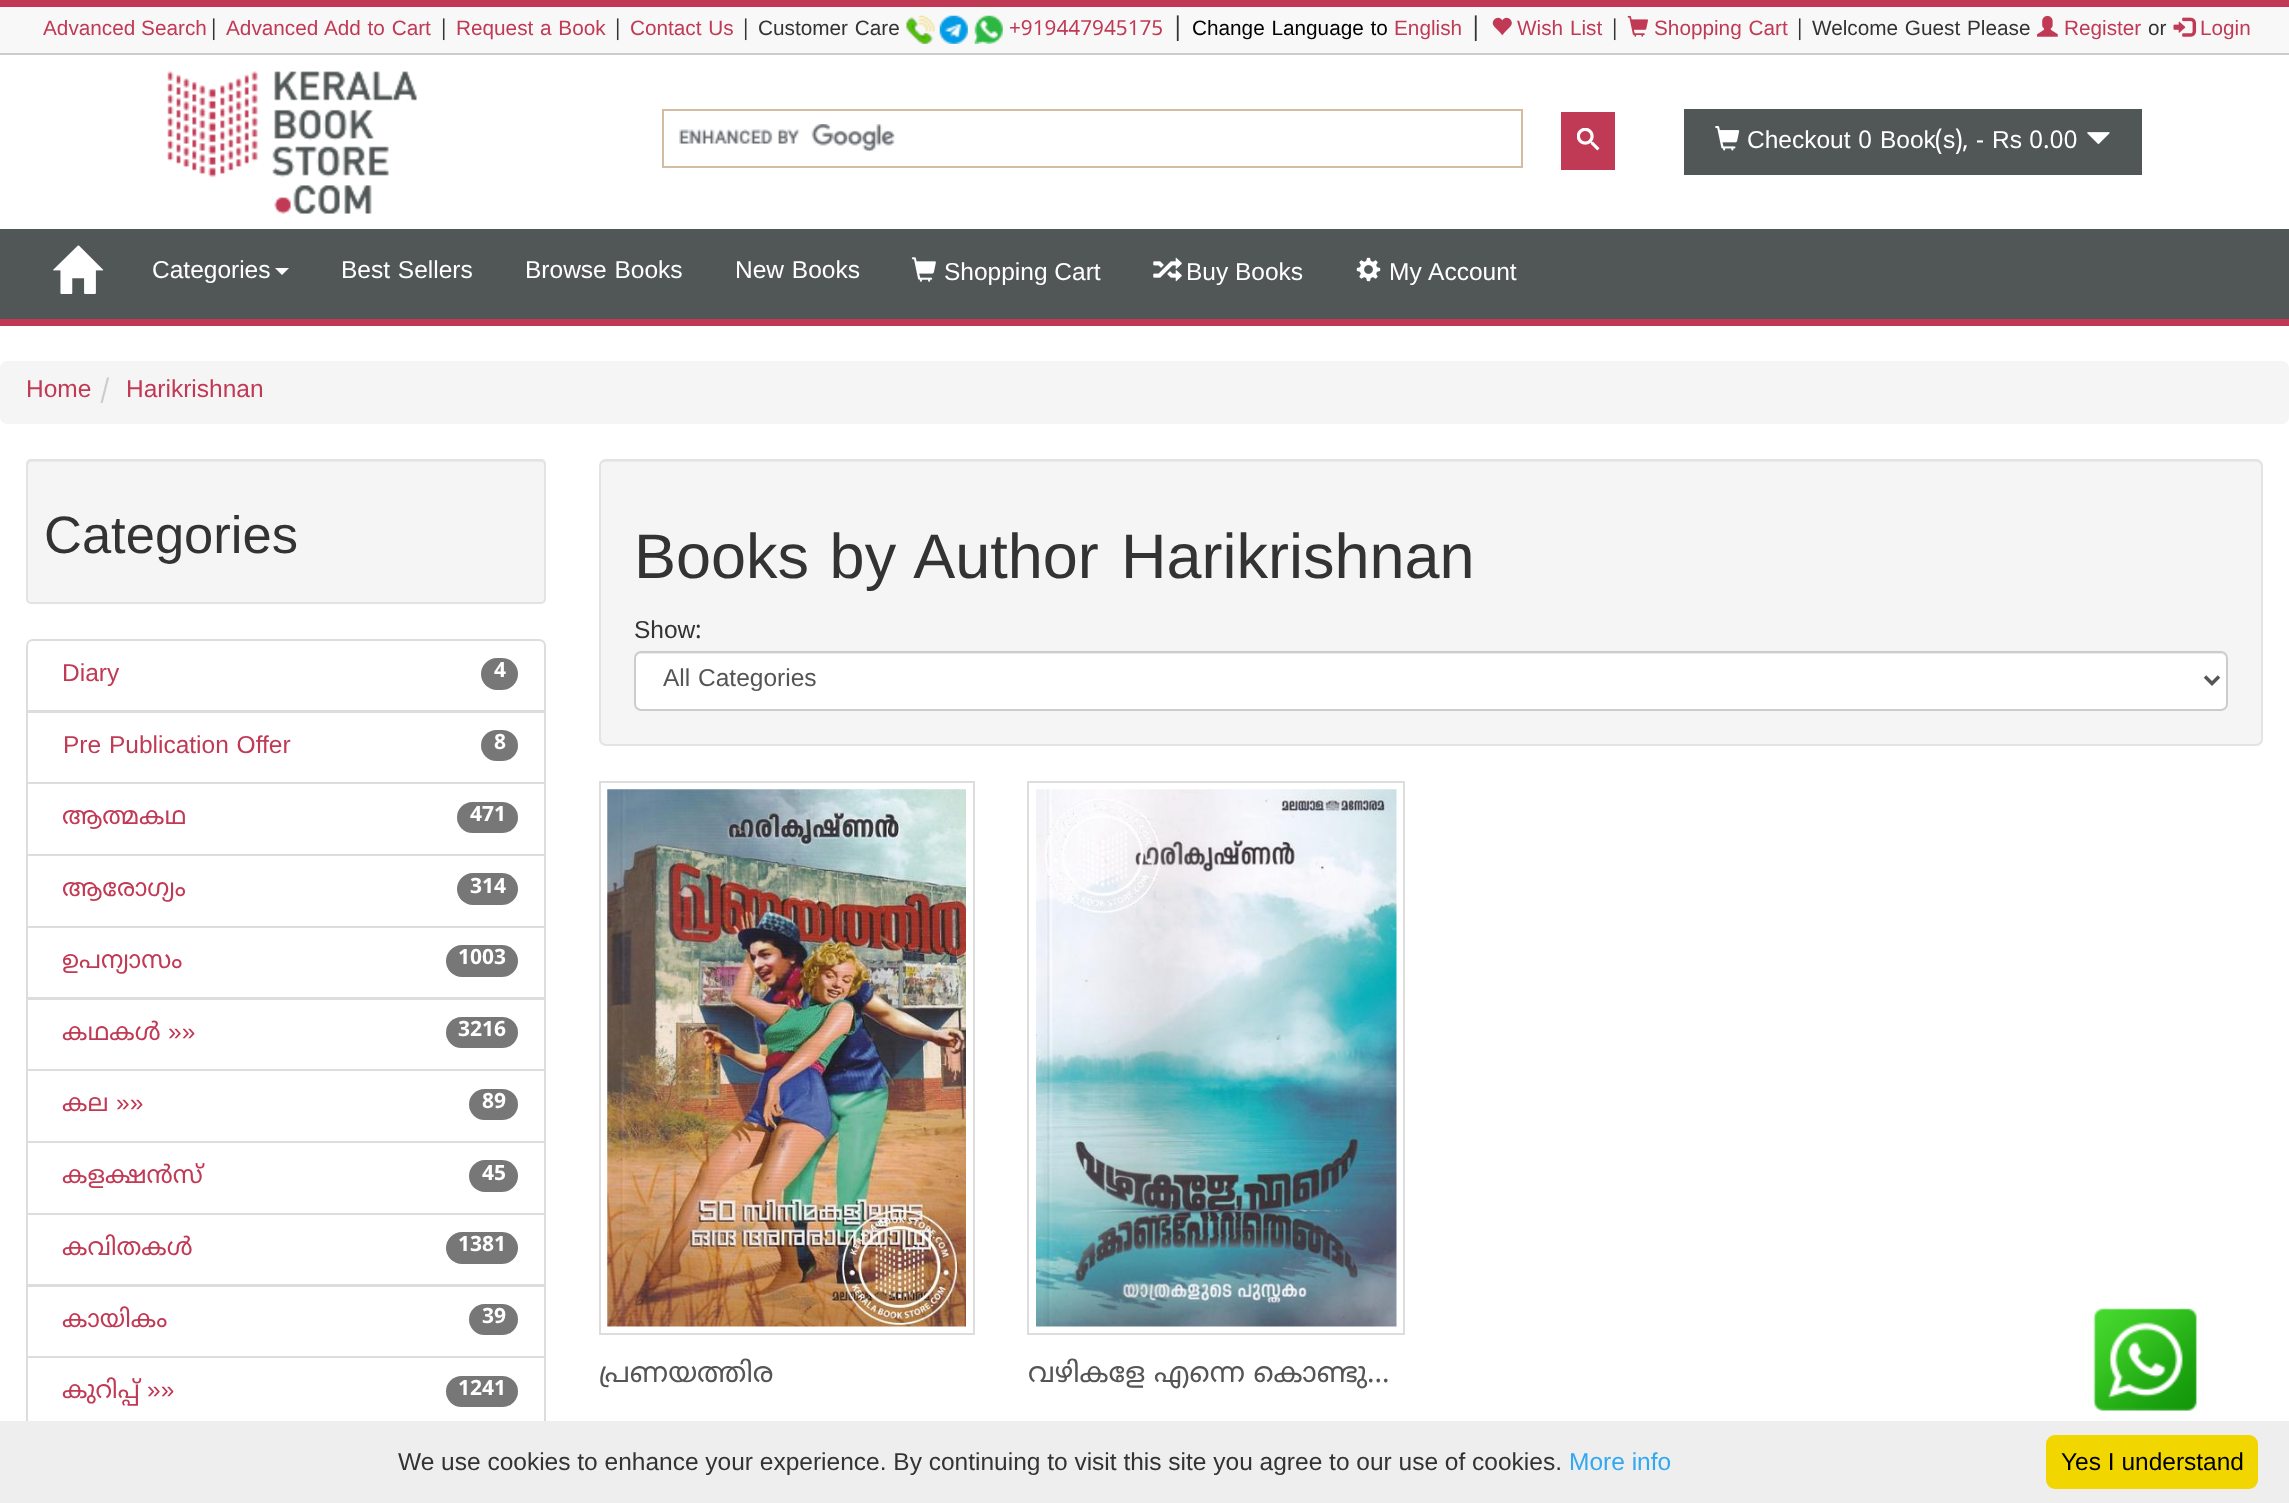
<svg xmlns="http://www.w3.org/2000/svg" width="2289" height="1503">
<style>
.a{font:20.75px Liberation Sans;fill:#c13a55}
.b{font:20.75px Noto Sans Malayalam;fill:#333}
.c{font:20.75px Liberation Sans;fill:#333}
.d{font:20.75px Noto Sans Malayalam;fill:#c13a55}
.e{font:24.5px Noto Sans Malayalam;fill:#333}
.f{font:20.75px Liberation Sans;fill:#000}
.g{font:24.5px Liberation Sans;fill:#fff}
.h{font:24.5px Noto Sans Malayalam;fill:#fff}
.i{font:24.5px Liberation Sans;fill:#c13a55}
.j{font:24.5px Noto Sans Malayalam;fill:#ccc}
.k{font:52.5px Liberation Sans;fill:#333}
.l{font:bold 21px Noto Sans Malayalam;fill:#fff}
.m{font:24.5px Noto Sans Malayalam;fill:#c13a55}
.n{font:63px Liberation Sans;fill:#333}
.o{font:24.5px Liberation Sans;fill:#333}
.p{font:24.5px Liberation Sans;fill:#555}
.q{font:28px Noto Sans Malayalam;fill:#555}
.r{font:24.5px Liberation Sans;fill:#31a8f0}
.s{font:24.5px Liberation Sans;fill:#000}
</style>
<rect width="100%" height="100%" fill="#fff"/>
<path fill="#c13a55" d="M0 0h2289v7H0z"/>
<path fill="#f8f8f8" d="M0 7h2289v46H0z"/>
<path fill="#ccc" d="M0 53h2289v2H0z"/>
<image href="1.png" x="906" y="15" width="29" height="29"/>
<image href="2.png" x="939" y="15" width="29" height="29"/>
<image href="3.png" x="974" y="15" width="29" height="29"/>
<image href="4.png" x="1492" y="17" width="20" height="19"/>
<image href="5.png" x="1627" y="15" width="21" height="22"/>
<image href="6.png" x="2037" y="15" width="21" height="22"/>
<image href="7.png" x="2173" y="17" width="24" height="20"/>
<image href="8.png" x="167" y="71" width="250" height="143"/>
<path fill="none" stroke="#d3bca1" stroke-width="2" d="M663 110h859v57H663z"/>
<image href="9.png" x="679" y="124" width="216" height="27"/>
<path fill="#c13a55" d="M1561 112h54v58H1561z"/>
<image href="10.png" x="1577" y="128" width="23" height="23"/>
<path fill="#515757" d="M1684 109h458v66H1684z"/>
<image href="11.png" x="1715" y="126" width="25" height="25"/>
<image href="12.png" x="2087" y="132" width="23" height="12"/>
<path fill="#515757" d="M0 229h2289v90H0z"/>
<path fill="#c13a55" d="M0 319h2289v7H0z"/>
<image href="13.png" x="53" y="245" width="51" height="49"/>
<path fill="#fff" d="M275 268h14l-7 7z"/>
<image href="14.png" x="911" y="257" width="25" height="25"/>
<image href="15.png" x="1153" y="257" width="29" height="25"/>
<image href="16.png" x="1356" y="257" width="25" height="25"/>
<rect fill="#f5f5f5" y="361" width="2289" height="63" rx="7"/>
<rect fill="#f5f5f5" x="26" y="459" width="520" height="145" rx="5"/>
<path fill="#e9e9e9" d="M32 462h509c2 0 3 2 3 4v-2c0-2-2-4-4-4h-508c-2 0-4 2-4 4v2c0-2 2-4 4-4z"/>
<rect fill="none" stroke="#e3e3e3" stroke-width="2" x="27" y="460" width="518" height="143" rx="4"/>
<path fill="none" stroke="#ddd" stroke-width="2" d="M33 640h506c3.5 0 6 2.5 6 6v65h-518v-65c0-3.5 2.5-6 6-6z"/>
<rect fill="#777" x="481" y="658" width="37" height="32" rx="16"/>
<path fill="none" stroke="#ddd" stroke-width="2" d="M27 712h518v71H27z"/>
<rect fill="#777" x="481" y="730" width="37" height="31" rx="15.5"/>
<path fill="none" stroke="#ddd" stroke-width="2" d="M27 783h518v72H27z"/>
<rect fill="#777" x="457" y="802" width="61" height="31" rx="15.5"/>
<path fill="none" stroke="#ddd" stroke-width="2" d="M27 855h518v72H27z"/>
<rect fill="#777" x="457" y="873" width="61" height="32" rx="16"/>
<path fill="none" stroke="#ddd" stroke-width="2" d="M27 927h518v71H27z"/>
<rect fill="#777" x="446" y="945" width="72" height="32" rx="16"/>
<path fill="none" stroke="#ddd" stroke-width="2" d="M27 999h518v71H27z"/>
<rect fill="#777" x="446" y="1017" width="72" height="31" rx="15.5"/>
<path fill="none" stroke="#ddd" stroke-width="2" d="M27 1070h518v72H27z"/>
<rect fill="#777" x="469" y="1089" width="49" height="31" rx="15.5"/>
<path fill="none" stroke="#ddd" stroke-width="2" d="M27 1142h518v72H27z"/>
<rect fill="#777" x="469" y="1160" width="49" height="32" rx="16"/>
<path fill="none" stroke="#ddd" stroke-width="2" d="M27 1214h518v71H27z"/>
<rect fill="#777" x="446" y="1232" width="72" height="32" rx="16"/>
<path fill="none" stroke="#ddd" stroke-width="2" d="M27 1286h518v71H27z"/>
<rect fill="#777" x="469" y="1304" width="49" height="31" rx="15.5"/>
<path fill="none" stroke="#ddd" stroke-width="2" d="M27 1357h518v72H27z"/>
<rect fill="#777" x="446" y="1376" width="72" height="31" rx="15.5"/>
<rect fill="#f5f5f5" x="599" y="459" width="1664" height="287" rx="7"/>
<path fill="#e9e9e9" d="M606 462h1650c3 0 5 2 5 5c0-3-1-7-5-7h-1651c-4 0-5 4-5 7c0-3 3-5 6-5z"/>
<rect fill="none" stroke="#e3e3e3" stroke-width="2" x="600" y="460" width="1662" height="285" rx="6"/>
<rect fill="#fff" x="634" y="651" width="1594" height="60" rx="7"/>
<path fill="#ececec" d="M640 654h1581c3 0 5 3 5 6c0-3-1-7-5-7h-1581c-4 0-5 4-5 7c0-3 3-6 5-6z"/>
<rect fill="none" stroke="#ccc" stroke-width="2" x="635" y="652" width="1592" height="58" rx="6"/>
<path fill="none" stroke="#555" stroke-width="3.5" d="M2205 676.5l7 7l7-7"/>
<path fill="none" stroke="#ddd" stroke-width="2" d="M600 782h374v552H600z"/>
<image href="17.png" x="607" y="789" width="359" height="538"/>
<path fill="none" stroke="#ddd" stroke-width="2" d="M1028 782h376v552H1028z"/>
<image href="18.png" x="1036" y="789" width="361" height="538"/>
<image href="19.png" x="2093" y="1308" width="104" height="103"/>
<path fill="#eee" d="M0 1421h2289v82H0z"/>
<rect fill="#f1d600" x="2046" y="1435" width="212" height="54" rx="9"/>
<text class="a" x="43" y="35">Advanced Search</text>
<text class="b" x="208" y="35">|</text>
<text class="a" x="226" y="35" word-spacing="1">Advanced Add to Cart</text>
<text class="b" x="438" y="35">|</text>
<text class="a" x="456" y="35" word-spacing="1">Request a Book</text>
<text class="b" x="612" y="35">|</text>
<text class="a" x="630" y="35" word-spacing="1">Contact Us</text>
<text class="b" x="740" y="35">|</text>
<text class="c" x="758" y="35" word-spacing="1">Customer Care</text>
<text class="d" x="1009" y="35">+919447945175</text>
<text class="e" x="1171" y="35">|</text>
<text class="f" x="1192" y="35" word-spacing="1">Change Language to</text>
<text class="a" x="1394" y="35">English</text>
<text class="e" x="1469" y="35">|</text>
<text class="a" x="1517" y="35" word-spacing="1">Wish List</text>
<text class="b" x="1609" y="35">|</text>
<text class="a" x="1654" y="35" word-spacing="1">Shopping Cart</text>
<text class="b" x="1794" y="35">|</text>
<text class="c" x="1812" y="35" word-spacing="1">Welcome Guest Please</text>
<text class="a" x="2064" y="35">Register</text>
<text class="c" x="2148" y="35">or</text>
<text class="a" x="2200" y="35">Login</text>
<text class="g" x="1747" y="148">Checkout</text>
<text class="h" x="1858" y="148">0</text>
<text class="g" x="1880" y="148">Book</text>
<text class="h" x="1935" y="148">(</text>
<text class="g" x="1943" y="148">s</text>
<text class="h" x="1955" y="148">), -</text>
<text class="g" x="1992" y="148">Rs</text>
<text class="h" x="2029" y="148">0.00</text>
<text class="g" x="152" y="278">Categories</text>
<text class="g" x="341" y="278" word-spacing="1">Best Sellers</text>
<text class="g" x="525" y="278" word-spacing="1">Browse Books</text>
<text class="g" x="735" y="278" word-spacing="1">New Books</text>
<text class="g" x="944" y="280">Shopping Cart</text>
<text class="g" x="1186" y="280">Buy Books</text>
<text class="g" x="1389" y="280" word-spacing="1">My Account</text>
<text class="i" x="26" y="397">Home</text>
<text class="j" x="100" y="397">/</text>
<text class="i" x="126" y="397">Harikrishnan</text>
<text class="k" x="44" y="553">Categories</text>
<text class="i" x="62" y="681">Diary</text>
<text class="l" x="494" y="677">4</text>
<text class="i" x="63" y="753" word-spacing="1">Pre Publication Offer</text>
<text class="l" x="494" y="749">8</text>
<text class="m" x="62" y="824">ആത്മകഥ</text>
<text class="l" x="470" y="821">471</text>
<text class="m" x="62" y="896">ആരോഗ്യം</text>
<text class="l" x="470" y="893">314</text>
<text class="m" x="62" y="968">ഉപന്യാസം</text>
<text class="l" x="458" y="964">1003</text>
<text class="m" x="62" y="1040">കഥകള്‍</text>
<text class="i" x="168" y="1040">»»</text>
<text class="l" x="458" y="1036">3216</text>
<text class="m" x="62" y="1111">കല</text>
<text class="i" x="116" y="1111">»»</text>
<text class="l" x="482" y="1108">89</text>
<text class="m" x="62" y="1183">കളക്ഷന്‍സ്</text>
<text class="l" x="482" y="1180">45</text>
<text class="m" x="62" y="1255">കവിതകള്‍</text>
<text class="l" x="458" y="1251">1381</text>
<text class="m" x="62" y="1327">കായികം</text>
<text class="l" x="482" y="1323">39</text>
<text class="m" x="62" y="1398">കുറിപ്പ്‌</text>
<text class="i" x="147" y="1398">»»</text>
<text class="l" x="458" y="1395">1241</text>
<text class="n" x="634" y="578" word-spacing="3">Books by Author</text>
<text class="n" x="1121" y="578">Harikrishnan</text>
<text class="o" x="634" y="638">Show</text>
<text class="e" x="695" y="638">:</text>
<text class="p" x="663" y="686" word-spacing="1">All Categories</text>
<text class="q" x="599" y="1382">പ്രണയത്തിര</text>
<text class="q" x="1028" y="1382">വഴികളേ എന്നെ കൊണ്ടു…</text>
<text class="o" x="398" y="1470">We use cookies to enhance your experience. By continuing to visit this site you agree to our use of cookies.</text>
<text class="r" x="1569" y="1470">More info</text>
<text class="s" x="2061" y="1470">Yes I understand</text>
</svg>
